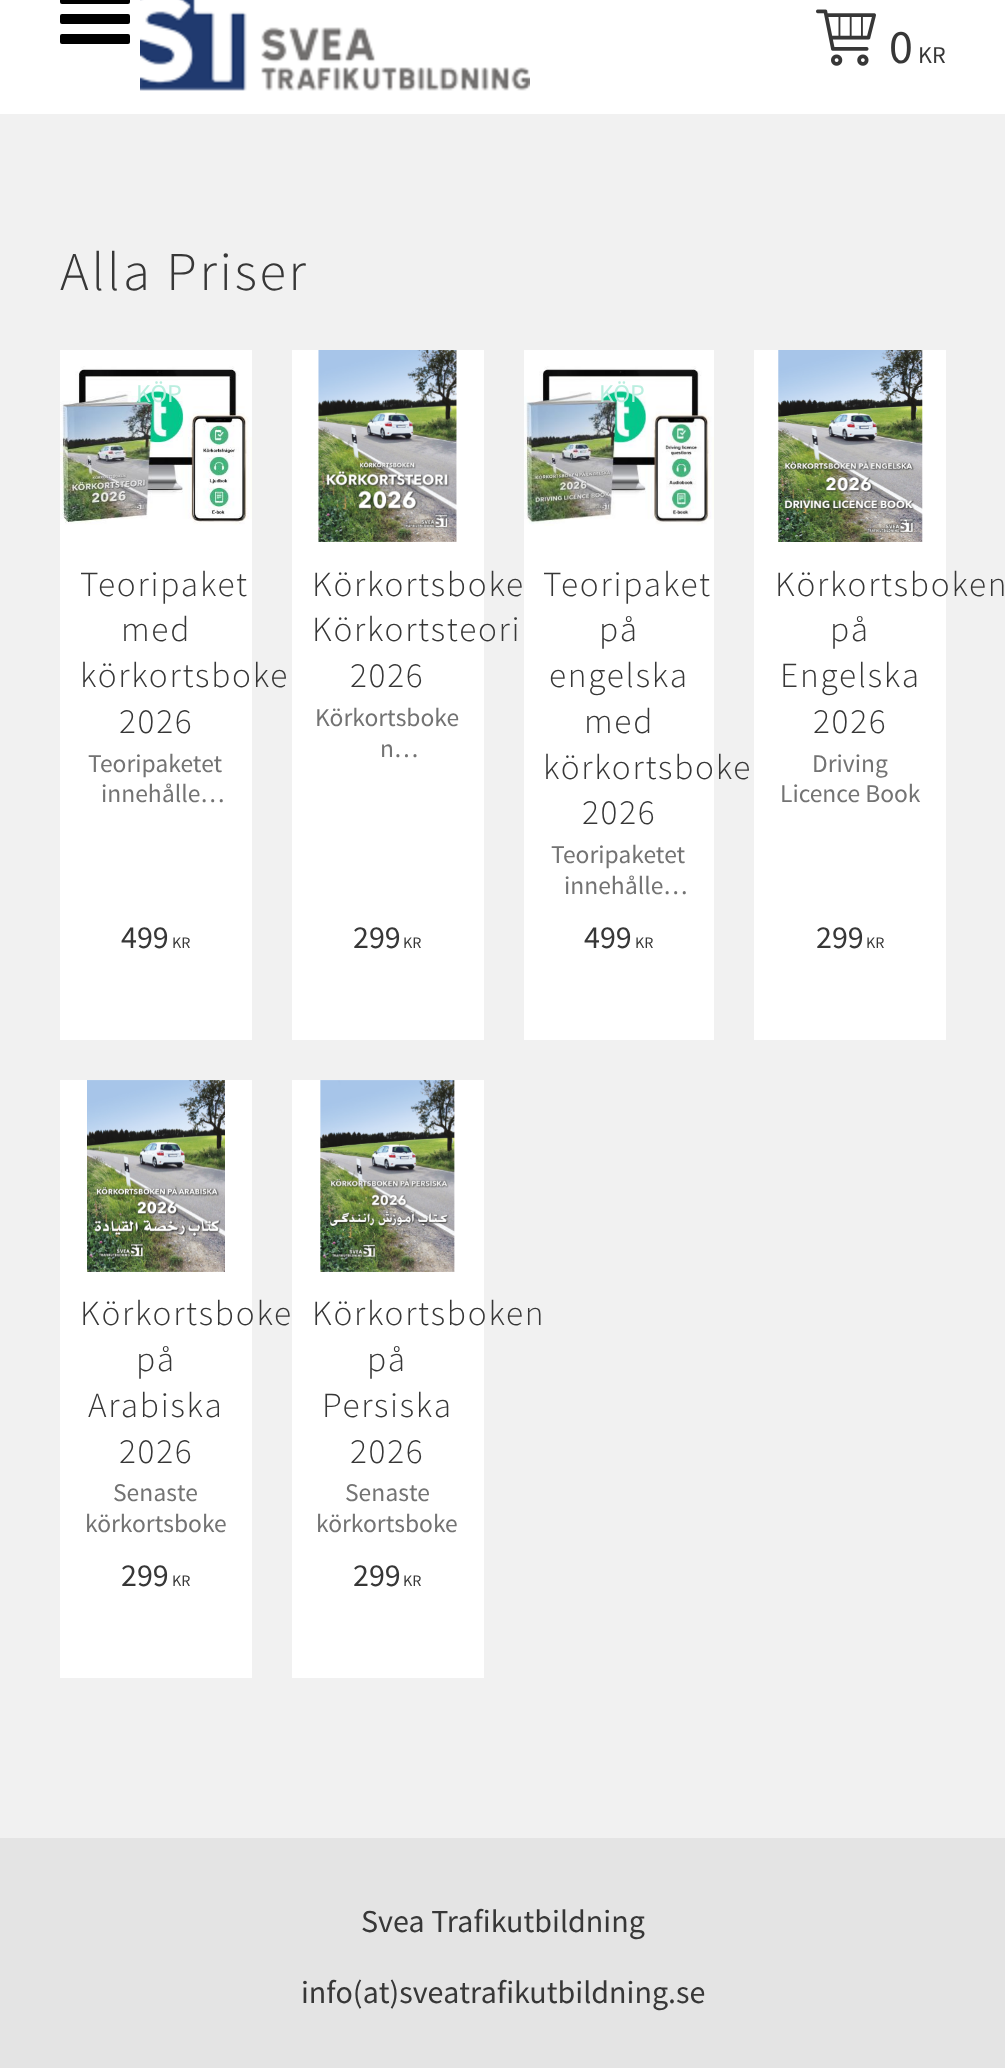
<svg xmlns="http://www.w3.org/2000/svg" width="1005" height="2068">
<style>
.a{font:48px Source Sans Pro;fill:#373737}
.b{font:24px Source Sans Pro;fill:#373737}
.c{font:300 54.5px Source Sans Pro;letter-spacing:2.75px;fill:#373737}
.d{font:25.5px Source Sans Pro;fill:#baeedf}
.e{font:300 35.25px Source Sans Pro;letter-spacing:1.75px;fill:#373737}
.f{font:25.5px Source Sans Pro;fill:#737373}
.g{font:32px Source Sans Pro;fill:#373737}
.h{font:16px Source Sans Pro;fill:#373737}
</style>
<rect width="100%" height="100%" fill="#f1f1f1"/>
<path fill="#fff" d="M0 0h1005v114H0z"/>
<rect fill="#000" x="60" y="14" width="70" height="10" rx="2"/>
<rect fill="#000" x="60" y="-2" width="70" height="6" rx="2"/>
<rect fill="#000" x="60" y="34" width="70" height="10" rx="2"/>
<image href="1.png" x="140" y="0" width="390" height="91"/>
<image href="2.png" x="816" y="9" width="60" height="57"/>
<path fill="#fff" d="M60 350h192v690H60z"/>
<image href="3.png" x="60" y="366" width="192" height="159"/>
<path fill="#fff" d="M292 350h192v690H292z"/>
<image href="4.png" x="318" y="350" width="139" height="192"/>
<path fill="#fff" d="M524 350h190v690H524z"/>
<image href="5.png" x="524" y="366" width="190" height="160"/>
<path fill="#fff" d="M754 350h192v690H754z"/>
<image href="6.png" x="778" y="350" width="145" height="192"/>
<path fill="#fff" d="M60 1080h192v598H60z"/>
<image href="7.png" x="87" y="1080" width="138" height="192"/>
<path fill="#fff" d="M292 1080h192v598H292z"/>
<image href="8.png" x="320" y="1080" width="135" height="192"/>
<path fill="#e4e4e4" d="M0 1838h1005v230H0z"/>
<text class="a" x="889" y="63">0</text>
<text class="b" x="918" y="63">KR</text>
<text class="c" x="60" y="290">Alla Priser</text>
<text class="d" x="136" y="402">KÖP</text>
<text class="e" x="80" y="596">Teoripaket</text>
<text class="e" x="121" y="641">med</text>
<text class="e" x="80" y="687">körkortsboke</text>
<text class="e" x="119" y="733">2026</text>
<text class="f" x="88" y="772">Teoripaketet</text>
<text class="f" x="101" y="802">innehålle…</text>
<text class="g" x="121" y="948">499</text>
<text class="h" x="172" y="948">KR</text>
<text class="e" x="312" y="596">Körkortsboke</text>
<text class="e" x="312" y="641">Körkortsteori</text>
<text class="e" x="350" y="687">2026</text>
<text class="f" x="315" y="726">Körkortsboke</text>
<text class="f" x="380" y="757">n…</text>
<text class="g" x="353" y="948">299</text>
<text class="h" x="403" y="948">KR</text>
<text class="d" x="599" y="402">KÖP</text>
<text class="e" x="543" y="596">Teoripaket</text>
<text class="e" x="599" y="641">på</text>
<text class="e" x="549" y="687">engelska</text>
<text class="e" x="584" y="733">med</text>
<text class="e" x="543" y="779">körkortsboke</text>
<text class="e" x="582" y="824">2026</text>
<text class="f" x="551" y="863">Teoripaketet</text>
<text class="f" x="564" y="894">innehålle…</text>
<text class="g" x="584" y="948">499</text>
<text class="h" x="635" y="948">KR</text>
<text class="e" x="775" y="596">Körkortsboken</text>
<text class="e" x="830" y="641">på</text>
<text class="e" x="780" y="687">Engelska</text>
<text class="e" x="813" y="733">2026</text>
<text class="f" x="812" y="772">Driving</text>
<text class="f" x="780" y="802">Licence Book</text>
<text class="g" x="816" y="948">299</text>
<text class="h" x="866" y="948">KR</text>
<text class="e" x="80" y="1325">Körkortsboke</text>
<text class="e" x="136" y="1371">på</text>
<text class="e" x="88" y="1417">Arabiska</text>
<text class="e" x="119" y="1463">2026</text>
<text class="f" x="113" y="1501">Senaste</text>
<text class="f" x="85" y="1532">körkortsboke</text>
<text class="g" x="121" y="1586">299</text>
<text class="h" x="172" y="1586">KR</text>
<text class="e" x="312" y="1325">Körkortsboken</text>
<text class="e" x="367" y="1371">på</text>
<text class="e" x="322" y="1417">Persiska</text>
<text class="e" x="350" y="1463">2026</text>
<text class="f" x="345" y="1501">Senaste</text>
<text class="f" x="316" y="1532">körkortsboke</text>
<text class="g" x="353" y="1586">299</text>
<text class="h" x="403" y="1586">KR</text>
<text class="g" x="361" y="1932">Svea Trafikutbildning</text>
<text class="g" x="301" y="2003">info(at)sveatrafikutbildning.se</text>
</svg>
